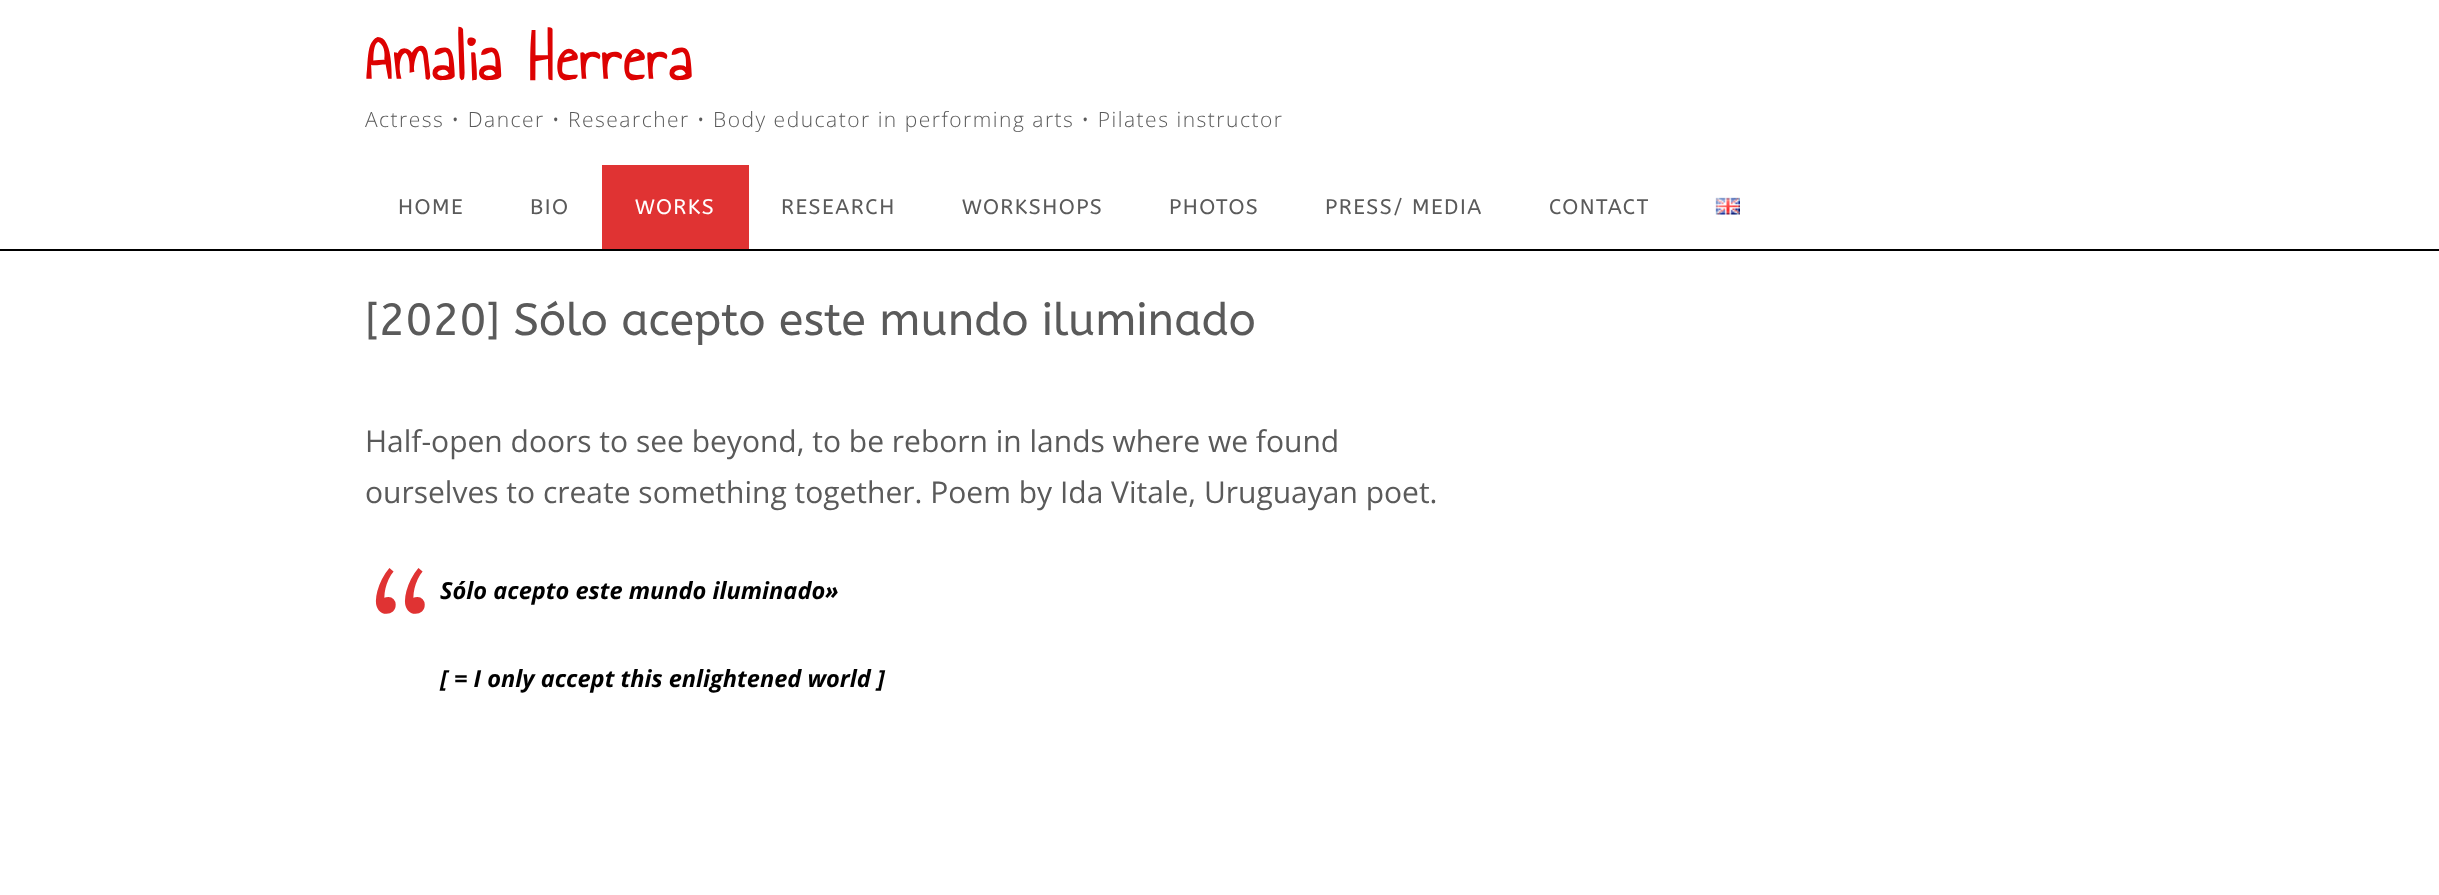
<svg xmlns="http://www.w3.org/2000/svg" width="2439" height="895">
<style>
.a{font:bold 67.5px Annie Use Your Telescope;letter-spacing:1.5px;fill:#dd0202}
.b{font:300 21px Open Sans;letter-spacing:1.5px;fill:#5a5a5a}
.c{font:21px ABeeZee;letter-spacing:1.5px;fill:#5a5a5a}
.d{font:21px ABeeZee;letter-spacing:1.5px;fill:#fff}
.e{font:45px ABeeZee;fill:#5a5a5a}
.f{font:30px Open Sans;fill:#5a5a5a}
.g{font:italic 165px Lora;fill:#e03333}
.h{font:italic bold 23.6px Open Sans;fill:#000}
</style>
<rect width="100%" height="100%" fill="#fff"/>
<path fill="#000" d="M0 249h2439v2H0z"/>
<path fill="#e03333" d="M602 165h147v84H602z"/>
<image href="1.png" x="1715" y="197" width="25" height="18"/>
<text class="a" x="365" y="80">Amalia Herrera</text>
<text class="b" x="365" y="127">Actress • Dancer • Researcher • Body educator in performing arts • Pilates instructor</text>
<text class="c" x="398" y="214">HOME</text>
<text class="c" x="530" y="214">BIO</text>
<text class="d" x="635" y="214">WORKS</text>
<text class="c" x="781" y="214">RESEARCH</text>
<text class="c" x="962" y="214">WORKSHOPS</text>
<text class="c" x="1169" y="214">PHOTOS</text>
<text class="c" x="1325" y="214">PRESS/ MEDIA</text>
<text class="c" x="1549" y="214">CONTACT</text>
<text class="e" x="365" y="335">[2020] Sólo acepto este mundo iluminado</text>
<text class="f" x="365" y="452">Half-open doors to see beyond, to be reborn in lands where we found</text>
<text class="f" x="365" y="503">ourselves to create something together. Poem by Ida Vitale, Uruguayan poet.</text>
<text class="g" x="365" y="693">“</text>
<text class="h" x="440" y="599">Sólo acepto este mundo iluminado»</text>
<text class="h" x="440" y="687">[ = I only accept this enlightened world ]</text>
</svg>
